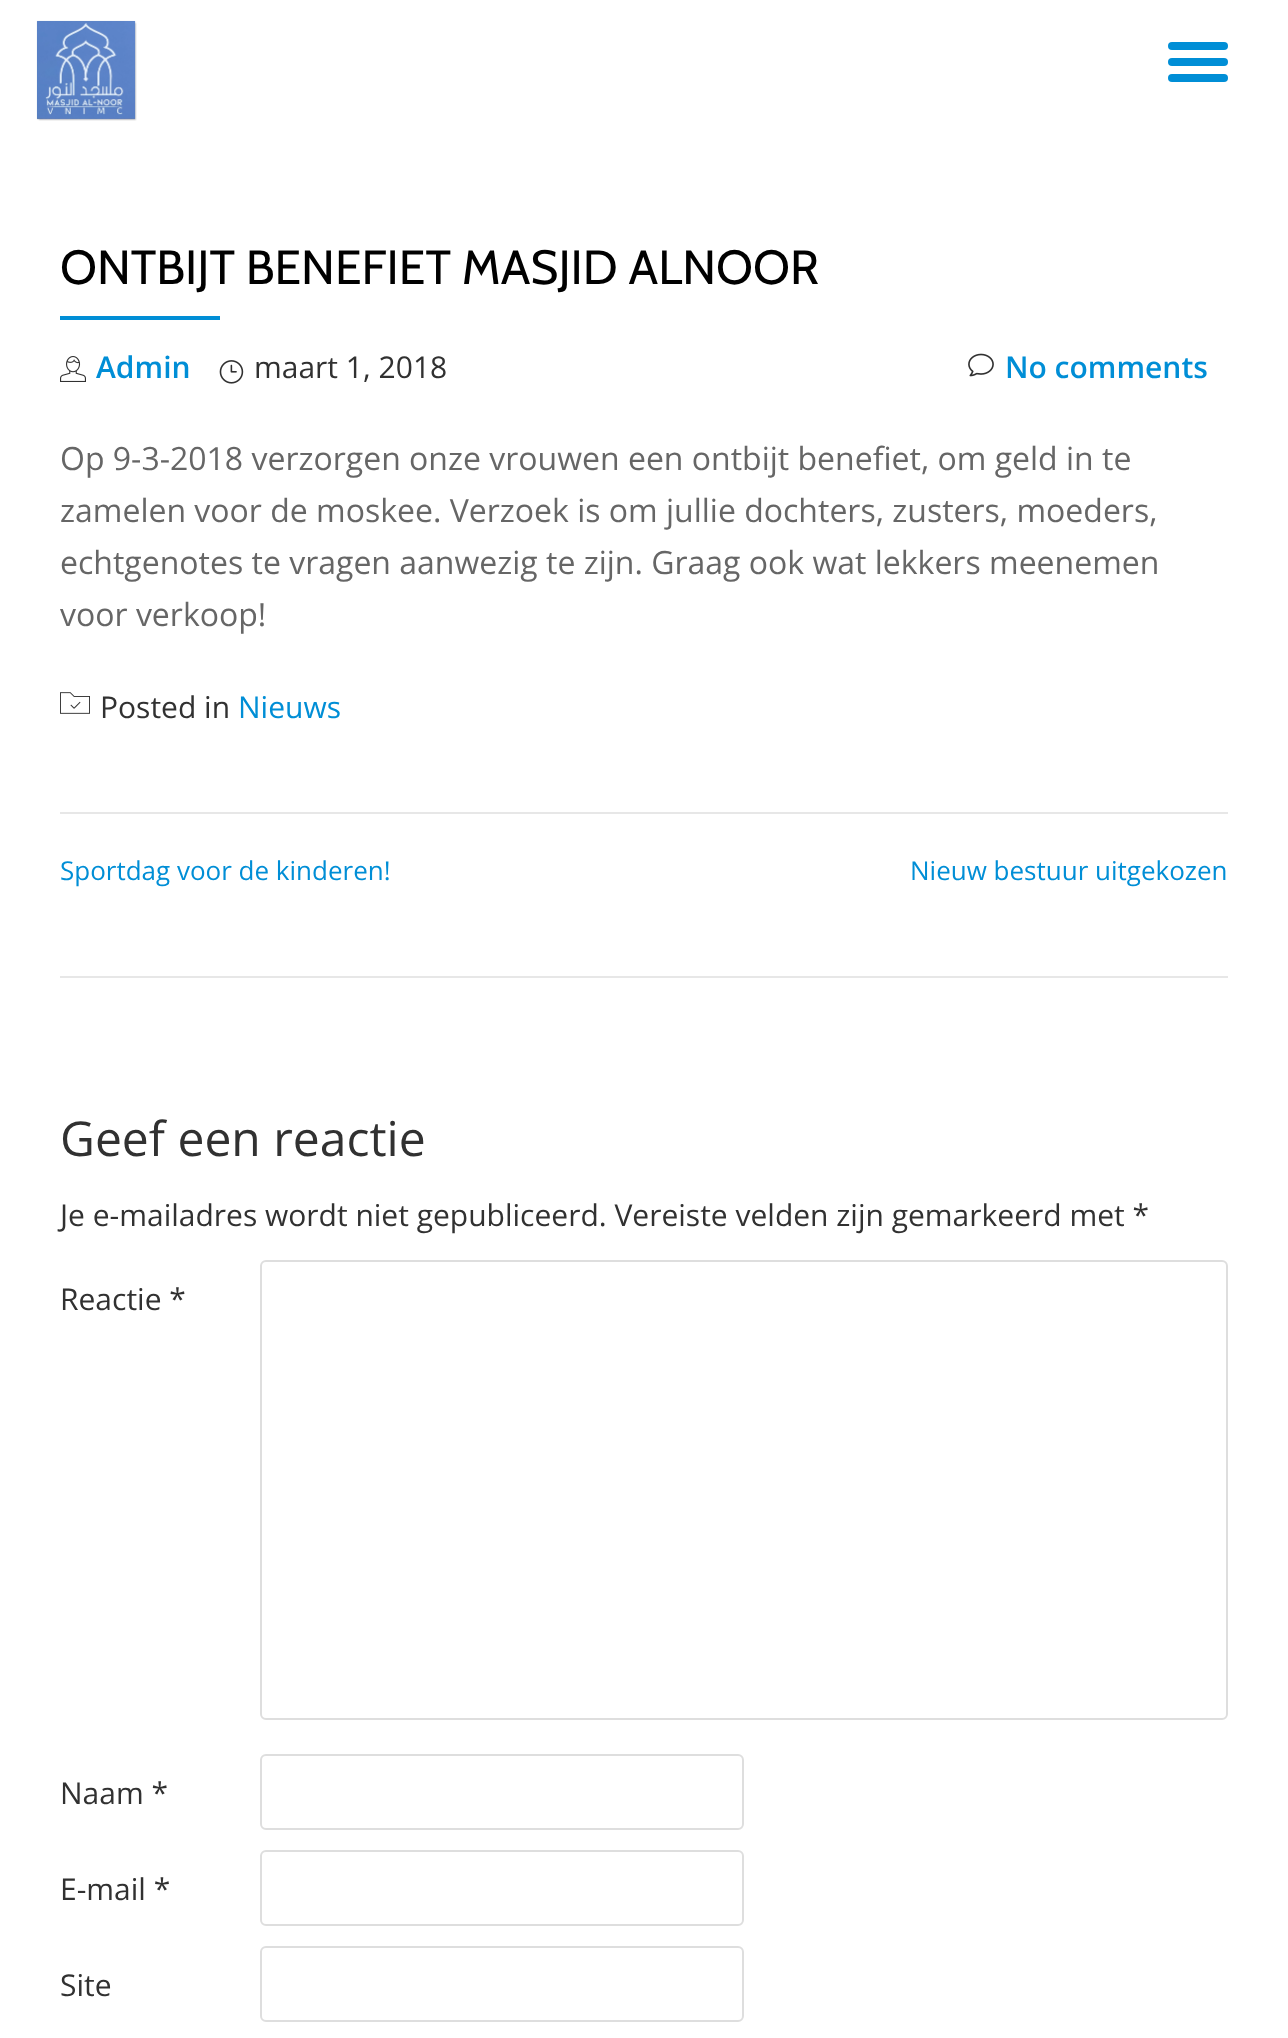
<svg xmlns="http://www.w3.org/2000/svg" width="1288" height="2038">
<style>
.a{font:48px Cabin;fill:#000}
.b{font:600 30px Open Sans;fill:#008ed6}
.c{font:30px Open Sans;fill:#313131}
.d{font:32px Open Sans;fill:#666}
.e{font:30px Open Sans;fill:#008ed6}
.f{font:26px Open Sans;fill:#008ed6}
.g{font:48px Open Sans;fill:#313131}
</style>
<rect width="100%" height="100%" fill="#fff"/>
<image href="1.png" x="36" y="20" width="101" height="101"/>
<rect fill="#008ed6" x="1168" y="42" width="60" height="8" rx="4"/>
<rect fill="#008ed6" x="1168" y="58" width="60" height="8" rx="4"/>
<rect fill="#008ed6" x="1168" y="74" width="60" height="8" rx="4"/>
<path fill="#008ed6" d="M60 316h160v4H60z"/>
<image href="2.png" x="60" y="356" width="26" height="26"/>
<image href="3.png" x="219" y="360" width="25" height="24"/>
<image href="4.png" x="968" y="353" width="26" height="24"/>
<image href="5.png" x="60" y="692" width="30" height="22"/>
<path fill="#e7e7e7" d="M60 812h1168v2H60z"/>
<path fill="#e7e7e7" d="M60 976h1168v2H60z"/>
<rect fill="none" stroke="#dedede" stroke-width="2" x="261" y="1261" width="966" height="458" rx="5"/>
<rect fill="none" stroke="#dedede" stroke-width="2" x="261" y="1755" width="482" height="74" rx="5"/>
<rect fill="none" stroke="#dedede" stroke-width="2" x="261" y="1851" width="482" height="74" rx="5"/>
<rect fill="none" stroke="#dedede" stroke-width="2" x="261" y="1947" width="482" height="74" rx="5"/>
<text class="a" x="60" y="284">ONTBIJT BENEFIET MASJID ALNOOR</text>
<text class="b" x="96" y="378">Admin</text>
<text class="c" x="254" y="378">maart 1, 2018</text>
<text class="b" x="1005" y="378">No comments</text>
<text class="d" x="60" y="470">Op 9-3-2018 verzorgen onze vrouwen een ontbijt benefiet, om geld in te</text>
<text class="d" x="60" y="522">zamelen voor de moskee. Verzoek is om jullie dochters, zusters, moeders,</text>
<text class="d" x="60" y="574">echtgenotes te vragen aanwezig te zijn. Graag ook wat lekkers meenemen</text>
<text class="d" x="60" y="626">voor verkoop!</text>
<text class="c" x="100" y="718">Posted in</text>
<text class="e" x="238" y="718">Nieuws</text>
<text class="f" x="60" y="880">Sportdag voor de kinderen!</text>
<text class="f" x="910" y="880">Nieuw bestuur uitgekozen</text>
<text class="g" x="60" y="1156">Geef een reactie</text>
<text class="c" x="60" y="1226">Je e-mailadres wordt niet gepubliceerd. Vereiste velden zijn gemarkeerd met *</text>
<text class="c" x="60" y="1310">Reactie *</text>
<text class="c" x="60" y="1804">Naam *</text>
<text class="c" x="60" y="1900">E-mail *</text>
<text class="c" x="60" y="1996">Site</text>
</svg>
